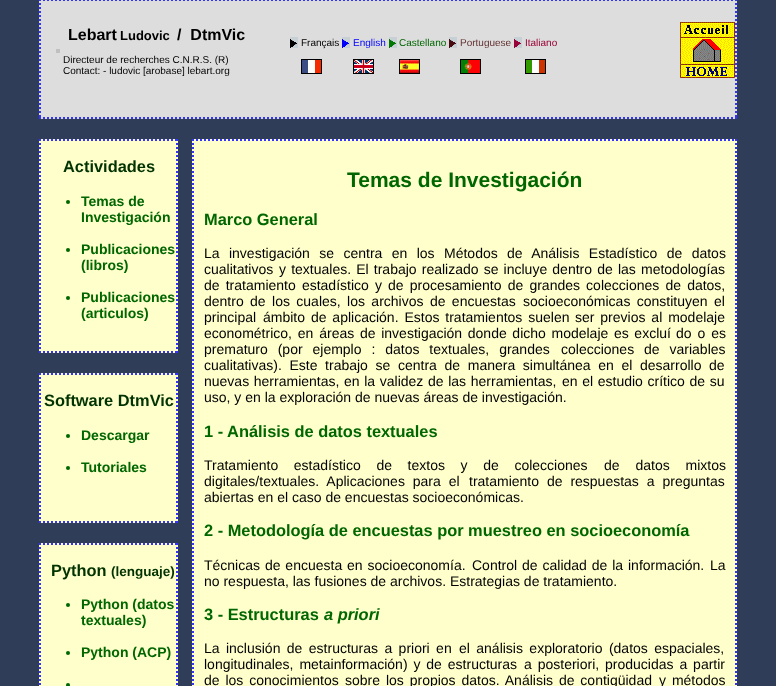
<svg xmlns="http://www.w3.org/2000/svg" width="776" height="686">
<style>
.a{font:bold 16px Liberation Sans;fill:#000}
.b{font:bold 13px Liberation Sans;fill:#000}
.c{font:10px Liberation Sans;fill:#000}
.d{font:10px Liberation Sans;fill:#00f}
.e{font:10px Liberation Sans;fill:#060}
.f{font:10px Liberation Sans;fill:#643232}
.g{font:10px Liberation Sans;fill:#903}
.h{font:bold 16.4px Liberation Sans;fill:#030}
.i{font:bold 14px Liberation Sans;fill:#060}
.j{font:bold 13.5px Liberation Sans;fill:#030}
.k{font:bold 21px Liberation Sans;fill:#060}
.l{font:bold 16.4px Liberation Sans;fill:#060}
.m{font:14px Liberation Sans;fill:#000}
.n{font:italic bold 16.4px Liberation Sans;fill:#060}
</style>
<rect width="100%" height="100%" fill="#303d58"/>
<path fill="#ddd" d="M39 0h698v119H39z"/>
<path fill="none" stroke="#33f" stroke-width="2" stroke-dasharray="2 2" d="M39 0h698"/>
<path fill="none" stroke="#33f" stroke-width="2" stroke-dasharray="2 2" d="M736-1v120"/>
<path fill="none" stroke="#33f" stroke-width="2" stroke-dasharray="2 2" d="M39 118h698"/>
<path fill="none" stroke="#33f" stroke-width="2" stroke-dasharray="2 2" d="M40-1v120"/>
<image href="1.png" x="290" y="37" width="8" height="11"/>
<image href="2.png" x="301" y="59" width="21" height="15"/>
<image href="3.png" x="342" y="37" width="8" height="11"/>
<image href="4.png" x="353" y="59" width="21" height="15"/>
<image href="5.png" x="389" y="37" width="8" height="11"/>
<image href="6.png" x="399" y="59" width="21" height="15"/>
<image href="7.png" x="449" y="37" width="8" height="11"/>
<image href="8.png" x="460" y="59" width="21" height="15"/>
<image href="9.png" x="514" y="37" width="8" height="11"/>
<image href="10.png" x="525" y="59" width="21" height="15"/>
<image href="11.png" x="680" y="22" width="55" height="56"/>
<path fill="#c0c0c0" d="M56 49h4v4H56z"/>
<path fill="#ffc" d="M39 139h139v214H39z"/>
<path fill="none" stroke="#33f" stroke-width="2" stroke-dasharray="2 2" d="M39 140h139"/>
<path fill="none" stroke="#33f" stroke-width="2" stroke-dasharray="2 2" d="M177 139v214"/>
<path fill="none" stroke="#33f" stroke-width="2" stroke-dasharray="2 2" d="M39 352h139"/>
<path fill="none" stroke="#33f" stroke-width="2" stroke-dasharray="2 2" d="M40 139v214"/>
<circle fill="#060" cx="68" cy="202" r="2"/>
<circle fill="#060" cx="68" cy="250" r="2"/>
<circle fill="#060" cx="68" cy="298" r="2"/>
<path fill="#ffc" d="M39 373h139v150H39z"/>
<path fill="none" stroke="#33f" stroke-width="2" stroke-dasharray="2 2" d="M39 374h139"/>
<path fill="none" stroke="#33f" stroke-width="2" stroke-dasharray="2 2" d="M177 373v150"/>
<path fill="none" stroke="#33f" stroke-width="2" stroke-dasharray="2 2" d="M39 522h139"/>
<path fill="none" stroke="#33f" stroke-width="2" stroke-dasharray="2 2" d="M40 373v150"/>
<circle fill="#060" cx="68" cy="436" r="2"/>
<circle fill="#060" cx="68" cy="468" r="2"/>
<path fill="#ffc" d="M39 543h139v143H39z"/>
<path fill="none" stroke="#33f" stroke-width="2" stroke-dasharray="2 2" d="M39 544h139"/>
<path fill="none" stroke="#33f" stroke-width="2" stroke-dasharray="2 2" d="M177 543v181"/>
<path fill="none" stroke="#33f" stroke-width="2" stroke-dasharray="2 2" d="M40 543v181"/>
<circle fill="#060" cx="68" cy="605" r="2"/>
<circle fill="#060" cx="68" cy="653" r="2"/>
<circle fill="#060" cx="68" cy="685" r="2"/>
<path fill="#ffc" d="M192 139h545v547H192z"/>
<path fill="none" stroke="#33f" stroke-width="2" stroke-dasharray="2 2" d="M192 140h545"/>
<path fill="none" stroke="#33f" stroke-width="2" stroke-dasharray="2 2" d="M736 139v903"/>
<path fill="none" stroke="#33f" stroke-width="2" stroke-dasharray="2 2" d="M193 139v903"/>
<text class="a" x="68" y="40">Lebart</text>
<text class="b" x="120" y="40">Ludovic</text>
<text class="a" xml:space="preserve" x="177" y="40">/  DtmVic</text>
<text class="c" x="63" y="63">Directeur de recherches C.N.R.S. (R)</text>
<text class="c" x="63" y="74">Contact: - ludovic [arobase] lebart.org</text>
<text class="c" x="301" y="46">Français</text>
<text class="d" x="353" y="46">English</text>
<text class="e" x="399" y="46">Castellano</text>
<text class="f" x="460" y="46">Portuguese</text>
<text class="g" x="525" y="46">Italiano</text>
<text class="h" x="63" y="172">Actividades</text>
<text class="i" x="81" y="206">Temas de</text>
<text class="i" x="81" y="222">Investigación</text>
<text class="i" x="81" y="254">Publicaciones</text>
<text class="i" x="81" y="270">(libros)</text>
<text class="i" x="81" y="302">Publicaciones</text>
<text class="i" x="81" y="318">(articulos)</text>
<text class="h" x="44" y="406">Software DtmVic</text>
<text class="i" x="81" y="440">Descargar</text>
<text class="i" x="81" y="472">Tutoriales</text>
<text class="h" x="51" y="576">Python</text>
<text class="j" x="111" y="576">(lenguaje)</text>
<text class="i" x="81" y="609">Python (datos</text>
<text class="i" x="81" y="625">textuales)</text>
<text class="i" x="81" y="657">Python (ACP)</text>
<text class="k" x="347" y="187">Temas de Investigación</text>
<text class="l" x="204" y="225">Marco General</text>
<text class="m" x="204" y="258" word-spacing="5.5">La investigación se centra en los Métodos</text>
<text class="m" x="507" y="258" word-spacing="5.5">de Análisis Estadístico de datos</text>
<text class="m" x="204" y="274">cualitativos</text>
<text class="m" x="279" y="274" word-spacing="1.25">y textuales. El trabajo realizado se incluye dentro de las</text>
<text class="m" x="641" y="274">metodologías</text>
<text class="m" x="204" y="290" word-spacing="2.25">de tratamiento estadístico y</text>
<text class="m" x="388" y="290" word-spacing="2.25">de procesamiento de grandes colecciones de datos,</text>
<text class="m" x="204" y="306" word-spacing="2.5">dentro de los cuales, los archivos de encuestas</text>
<text class="m" x="523" y="306" word-spacing="2.5">socioeconómicas constituyen el</text>
<text class="m" x="204" y="322">principal</text>
<text class="m" x="263" y="322" word-spacing="2">ámbito de aplicación. Estos tratamientos suelen</text>
<text class="m" x="575" y="322" word-spacing="2">ser previos al modelaje</text>
<text class="m" x="204" y="338" word-spacing="2">econométrico, en áreas</text>
<text class="m" x="360" y="338" word-spacing="1.75">de investigación donde dicho modelaje es excluí</text>
<text class="m" x="676" y="338" word-spacing="2">do o es</text>
<text class="m" x="204" y="354" word-spacing="6">prematuro (por ejemplo : datos textuales, grandes</text>
<text class="m" x="561" y="354" word-spacing="6">colecciones de variables</text>
<text class="m" x="204" y="370" word-spacing="3.75">cualitativas). Este trabajo se</text>
<text class="m" x="398" y="370" word-spacing="3.75">centra de manera simultánea en el desarrollo de</text>
<text class="m" x="204" y="386" word-spacing="0.75">nuevas herramientas, en la validez de las herramientas,</text>
<text class="m" x="562" y="386" word-spacing="0.75">en el estudio crítico de su</text>
<text class="m" x="204" y="402">uso, y en la exploración de nuevas áreas de investigación.</text>
<text class="l" x="204" y="437">1 - Análisis de datos textuales</text>
<text class="m" x="204" y="470" word-spacing="11.75">Tratamiento estadístico de textos y de colecciones</text>
<text class="m" x="604" y="470" word-spacing="12">de datos mixtos</text>
<text class="m" x="204" y="486" word-spacing="4">digitales/textuales. Aplicaciones para el</text>
<text class="m" x="469" y="486" word-spacing="4">tratamiento de respuestas a preguntas</text>
<text class="m" x="204" y="502">abiertas en el caso de encuestas socioeconómicas.</text>
<text class="l" x="204" y="536">2 - Metodología de encuestas por muestreo en socioeconomía</text>
<text class="m" x="204" y="570" word-spacing="1">Técnicas de encuesta en socioeconomía.</text>
<text class="m" x="472" y="570" word-spacing="1">Control de calidad de la información.</text>
<text class="m" x="710" y="570">La</text>
<text class="m" x="204" y="586">no respuesta, las fusiones de archivos. Estrategias de tratamiento.</text>
<text class="l" x="204" y="620">3 - Estructuras</text>
<text class="n" x="324" y="620">a priori</text>
<text class="m" x="204" y="653" word-spacing="2.5">La inclusión de estructuras a priori en</text>
<text class="m" x="459" y="653" word-spacing="2.5">el análisis exploratorio (datos espaciales,</text>
<text class="m" x="204" y="669" word-spacing="2">longitudinales, metainformación) y de estructuras</text>
<text class="m" x="524" y="669" word-spacing="2">a posteriori, producidas a partir</text>
<text class="m" x="204" y="685" word-spacing="2">de los conocimientos</text>
<text class="m" x="345" y="685" word-spacing="2">sobre los propios datos. Análisis de contigüidad</text>
<text class="m" x="659" y="685" word-spacing="2">y métodos</text>
</svg>
